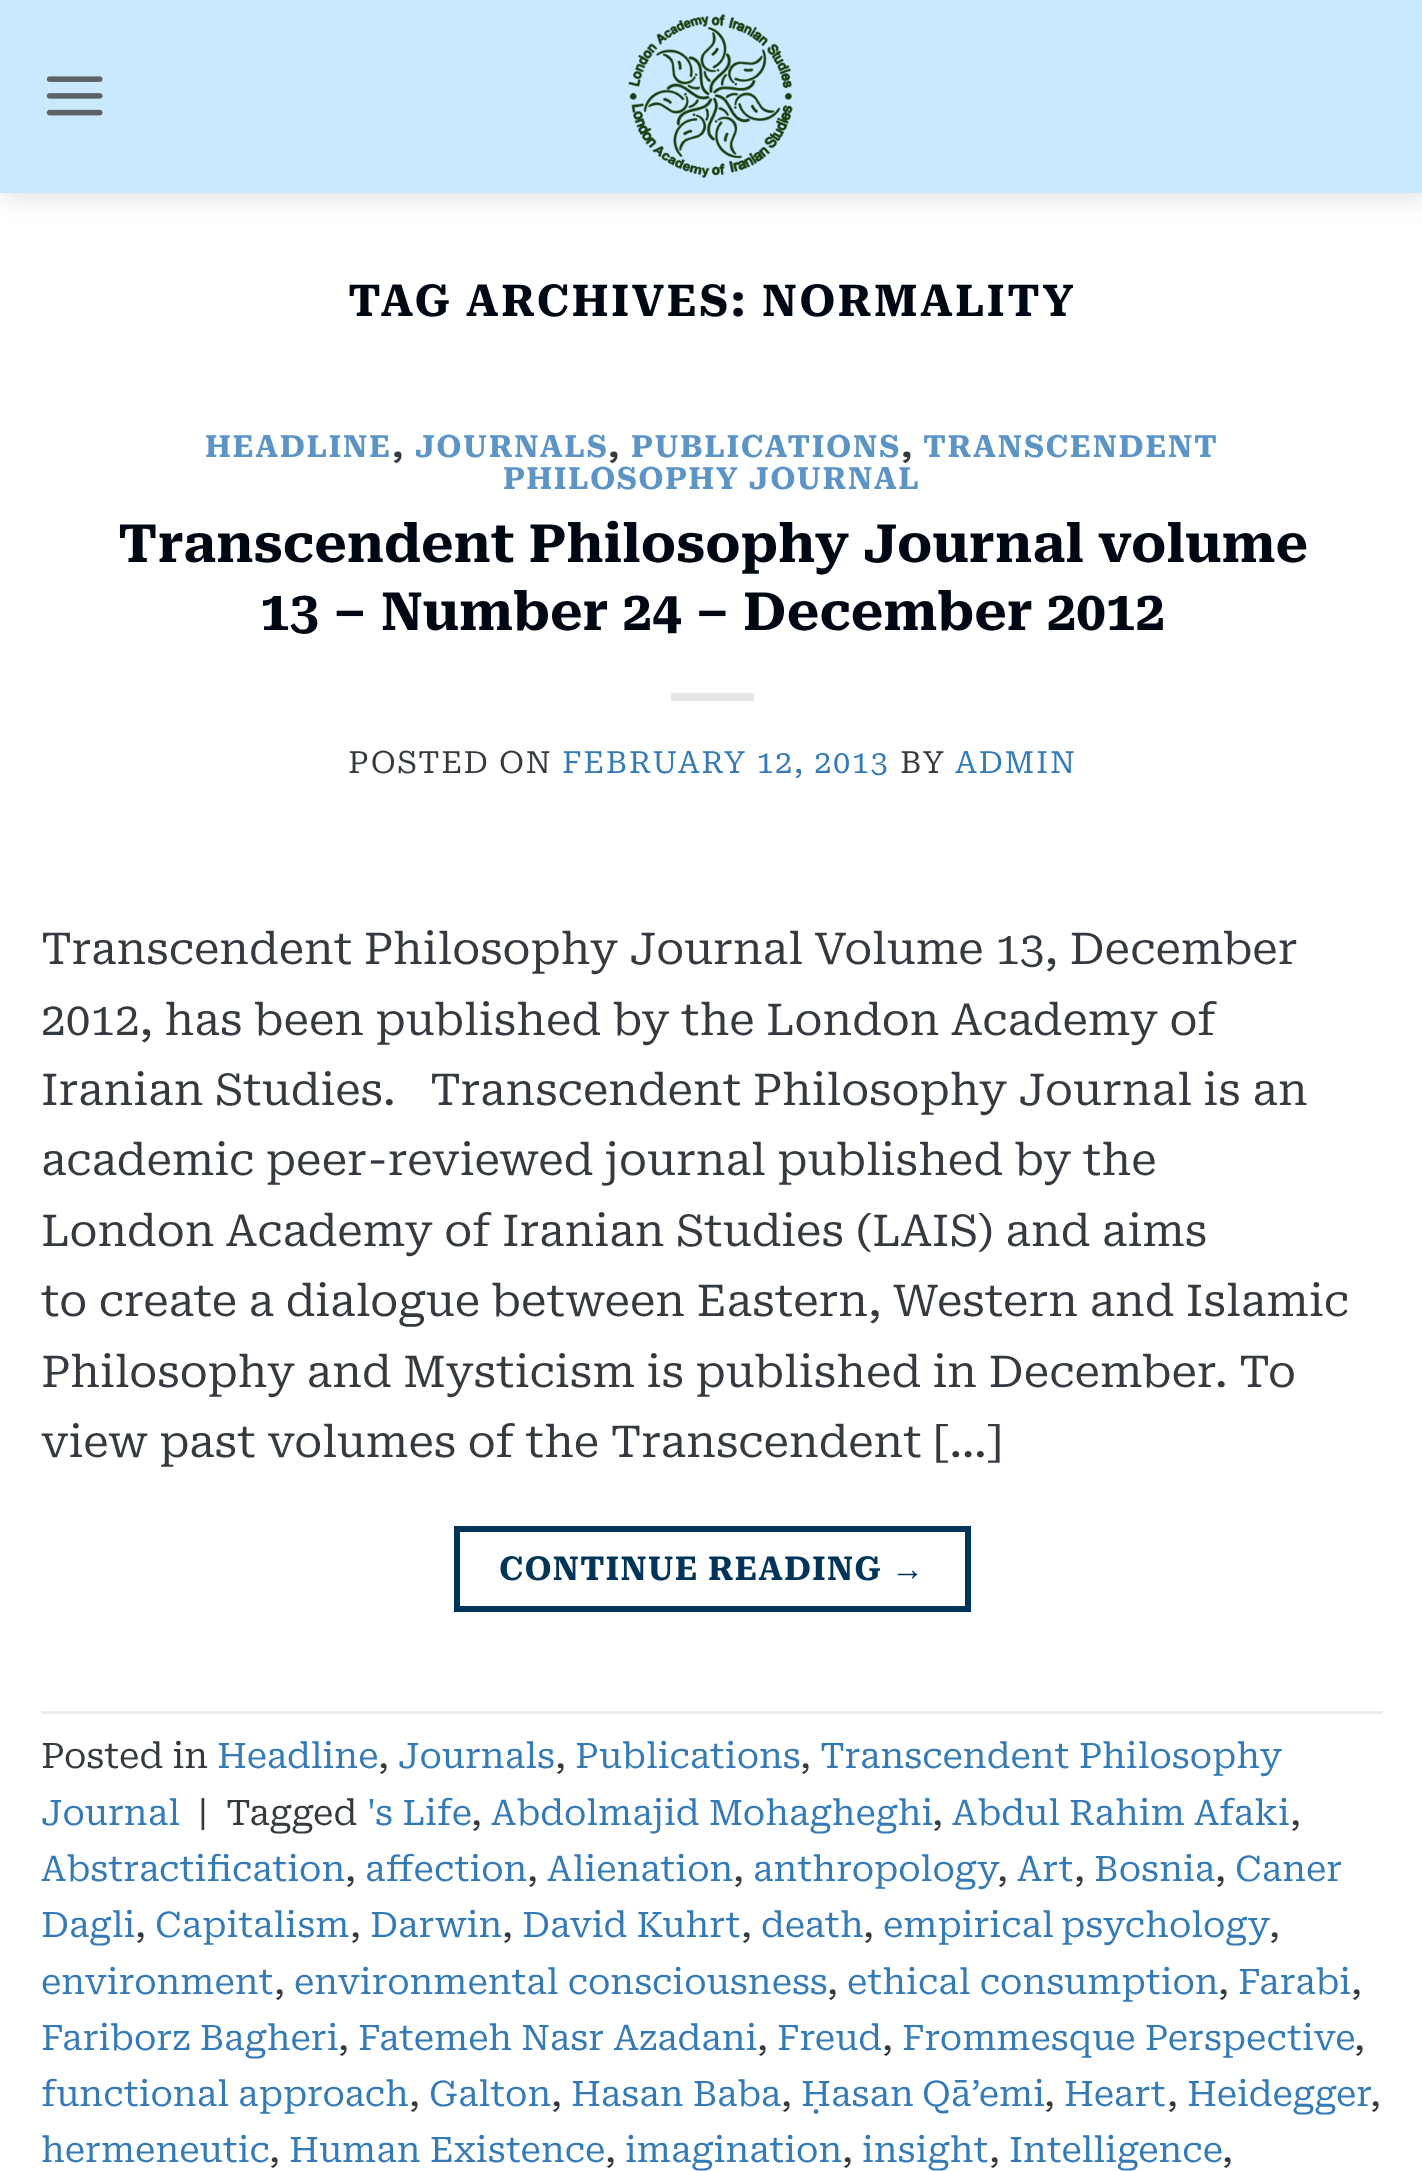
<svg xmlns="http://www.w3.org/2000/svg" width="1422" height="2171">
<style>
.a{font:bold 44px Roboto Serif;letter-spacing:2.2px;fill:#000814}
.b{font:bold 30.75px Roboto Serif;letter-spacing:1.5px;fill:#5c95c5}
.c{font:bold 30.75px Roboto Serif;letter-spacing:1.5px;fill:#343a40}
.d{font:bold 52.8px Roboto Serif;fill:#000814}
.e{font:30.75px Roboto Serif;letter-spacing:1.5px;fill:#343a40}
.f{font:30.75px Roboto Serif;letter-spacing:1.5px;fill:#337ab7}
.g{font:44px Roboto Serif;fill:#343a40}
.h{font:bold 33px Roboto Serif;letter-spacing:1px;fill:#003459}
.i{font:bold 33px Liberation Sans;letter-spacing:1px;fill:#003459}
.j{font:35.25px Roboto Serif;fill:#343a40}
.k{font:35.25px Roboto Serif;fill:#337ab7}
</style>
<rect width="100%" height="100%" fill="#fff"/>
<path fill="#00000026" filter="blur(14px)" d="M3 3h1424v192H3z"/>
<path fill="#cae9ff" d="M0 0h1422v193H0z"/>
<image href="1.png" x="46" y="76" width="57" height="40"/>
<image href="2.png" x="628" y="14" width="165" height="165"/>
<path fill="#e6e6e6" d="M671 693h83v8H671z"/>
<path fill="none" stroke="#003459" stroke-width="6" d="M457 1529h511v80H457z"/>
<path fill="#ececec" d="M41 1711h1342v3H41z"/>
<text class="a" x="348" y="316">TAG ARCHIVES: NORMALITY</text>
<text class="b" x="205" y="457">HEADLINE</text>
<text class="c" x="392" y="457">,</text>
<text class="b" x="415" y="457">JOURNALS</text>
<text class="c" x="608" y="457">,</text>
<text class="b" x="631" y="457">PUBLICATIONS</text>
<text class="c" x="901" y="457">,</text>
<text class="b" x="923" y="457">TRANSCENDENT</text>
<text class="b" x="503" y="489">PHILOSOPHY JOURNAL</text>
<text class="d" x="118" y="562">Transcendent Philosophy Journal volume</text>
<text class="d" x="260" y="630">13 – Number 24 – December 2012</text>
<text class="e" x="348" y="773">POSTED ON</text>
<text class="f" x="562" y="773">FEBRUARY 12, 2013</text>
<text class="e" x="900" y="773">BY</text>
<text class="f" x="955" y="773">ADMIN</text>
<text class="g" x="41" y="964">Transcendent Philosophy Journal Volume 13, December</text>
<text class="g" x="41" y="1035">2012, has been published by the London Academy of</text>
<text class="g" xml:space="preserve" x="41" y="1105">Iranian Studies.   Transcendent Philosophy Journal is an</text>
<text class="g" x="41" y="1175">academic peer-reviewed journal published by the</text>
<text class="g" x="41" y="1246">London Academy of Iranian Studies (LAIS) and aims</text>
<text class="g" x="41" y="1316">to create a dialogue between Eastern, Western and Islamic</text>
<text class="g" x="41" y="1387">Philosophy and Mysticism is published in December. To</text>
<text class="g" x="41" y="1457">view past volumes of the Transcendent […]</text>
<text class="h" x="499" y="1580">CONTINUE READING</text>
<text class="i" x="891" y="1580">→</text>
<text class="j" x="41" y="1768">Posted in</text>
<text class="k" x="217" y="1768">Headline</text>
<text class="j" x="378" y="1768">,</text>
<text class="k" x="398" y="1768">Journals</text>
<text class="j" x="555" y="1768">,</text>
<text class="k" x="575" y="1768">Publications</text>
<text class="j" x="800" y="1768">,</text>
<text class="k" x="820" y="1768">Transcendent Philosophy</text>
<text class="k" x="41" y="1825">Journal</text>
<text class="j" x="198" y="1825">|</text>
<text class="j" x="226" y="1825">Tagged</text>
<text class="k" x="367" y="1825">'s Life</text>
<text class="j" x="471" y="1825">,</text>
<text class="k" x="491" y="1825">Abdolmajid Mohagheghi</text>
<text class="j" x="932" y="1825">,</text>
<text class="k" x="952" y="1825">Abdul Rahim Afaki</text>
<text class="j" x="1290" y="1825">,</text>
<text class="k" x="41" y="1881">Abstractification</text>
<text class="j" x="345" y="1881">,</text>
<text class="k" x="365" y="1881">affection</text>
<text class="j" x="527" y="1881">,</text>
<text class="k" x="547" y="1881">Alienation</text>
<text class="j" x="733" y="1881">,</text>
<text class="k" x="753" y="1881">anthropology</text>
<text class="j" x="997" y="1881">,</text>
<text class="k" x="1017" y="1881">Art</text>
<text class="j" x="1074" y="1881">,</text>
<text class="k" x="1094" y="1881">Bosnia</text>
<text class="j" x="1215" y="1881">,</text>
<text class="k" x="1235" y="1881">Caner</text>
<text class="k" x="41" y="1937">Dagli</text>
<text class="j" x="135" y="1937">,</text>
<text class="k" x="155" y="1937">Capitalism</text>
<text class="j" x="350" y="1937">,</text>
<text class="k" x="370" y="1937">Darwin</text>
<text class="j" x="502" y="1937">,</text>
<text class="k" x="522" y="1937">David Kuhrt</text>
<text class="j" x="741" y="1937">,</text>
<text class="k" x="761" y="1937">death</text>
<text class="j" x="863" y="1937">,</text>
<text class="k" x="883" y="1937" word-spacing="-2">empirical psychology</text>
<text class="j" x="1269" y="1937">,</text>
<text class="k" x="41" y="1994">environment</text>
<text class="j" x="274" y="1994">,</text>
<text class="k" x="294" y="1994">environmental consciousness</text>
<text class="j" x="827" y="1994">,</text>
<text class="k" x="847" y="1994">ethical consumption</text>
<text class="j" x="1218" y="1994">,</text>
<text class="k" x="1238" y="1994">Farabi</text>
<text class="j" x="1351" y="1994">,</text>
<text class="k" x="41" y="2050">Fariborz Bagheri</text>
<text class="j" x="338" y="2050">,</text>
<text class="k" x="358" y="2050">Fatemeh Nasr Azadani</text>
<text class="j" x="757" y="2050">,</text>
<text class="k" x="777" y="2050">Freud</text>
<text class="j" x="882" y="2050">,</text>
<text class="k" x="902" y="2050">Frommesque Perspective</text>
<text class="j" x="1354" y="2050">,</text>
<text class="k" x="41" y="2106">functional approach</text>
<text class="j" x="409" y="2106">,</text>
<text class="k" x="429" y="2106">Galton</text>
<text class="j" x="551" y="2106">,</text>
<text class="k" x="571" y="2106">Hasan Baba</text>
<text class="j" x="781" y="2106">,</text>
<text class="k" x="801" y="2106" word-spacing="-1">Ḥasan Qā’emi</text>
<text class="j" x="1044" y="2106">,</text>
<text class="k" x="1064" y="2106">Heart</text>
<text class="j" x="1167" y="2106">,</text>
<text class="k" x="1187" y="2106">Heidegger</text>
<text class="j" x="1370" y="2106">,</text>
<text class="k" x="41" y="2162">hermeneutic</text>
<text class="j" x="269" y="2162">,</text>
<text class="k" x="289" y="2162">Human Existence</text>
<text class="j" x="605" y="2162">,</text>
<text class="k" x="625" y="2162">imagination</text>
<text class="j" x="842" y="2162">,</text>
<text class="k" x="862" y="2162">insight</text>
<text class="j" x="989" y="2162">,</text>
<text class="k" x="1009" y="2162">Intelligence</text>
<text class="j" x="1222" y="2162">,</text>
</svg>
